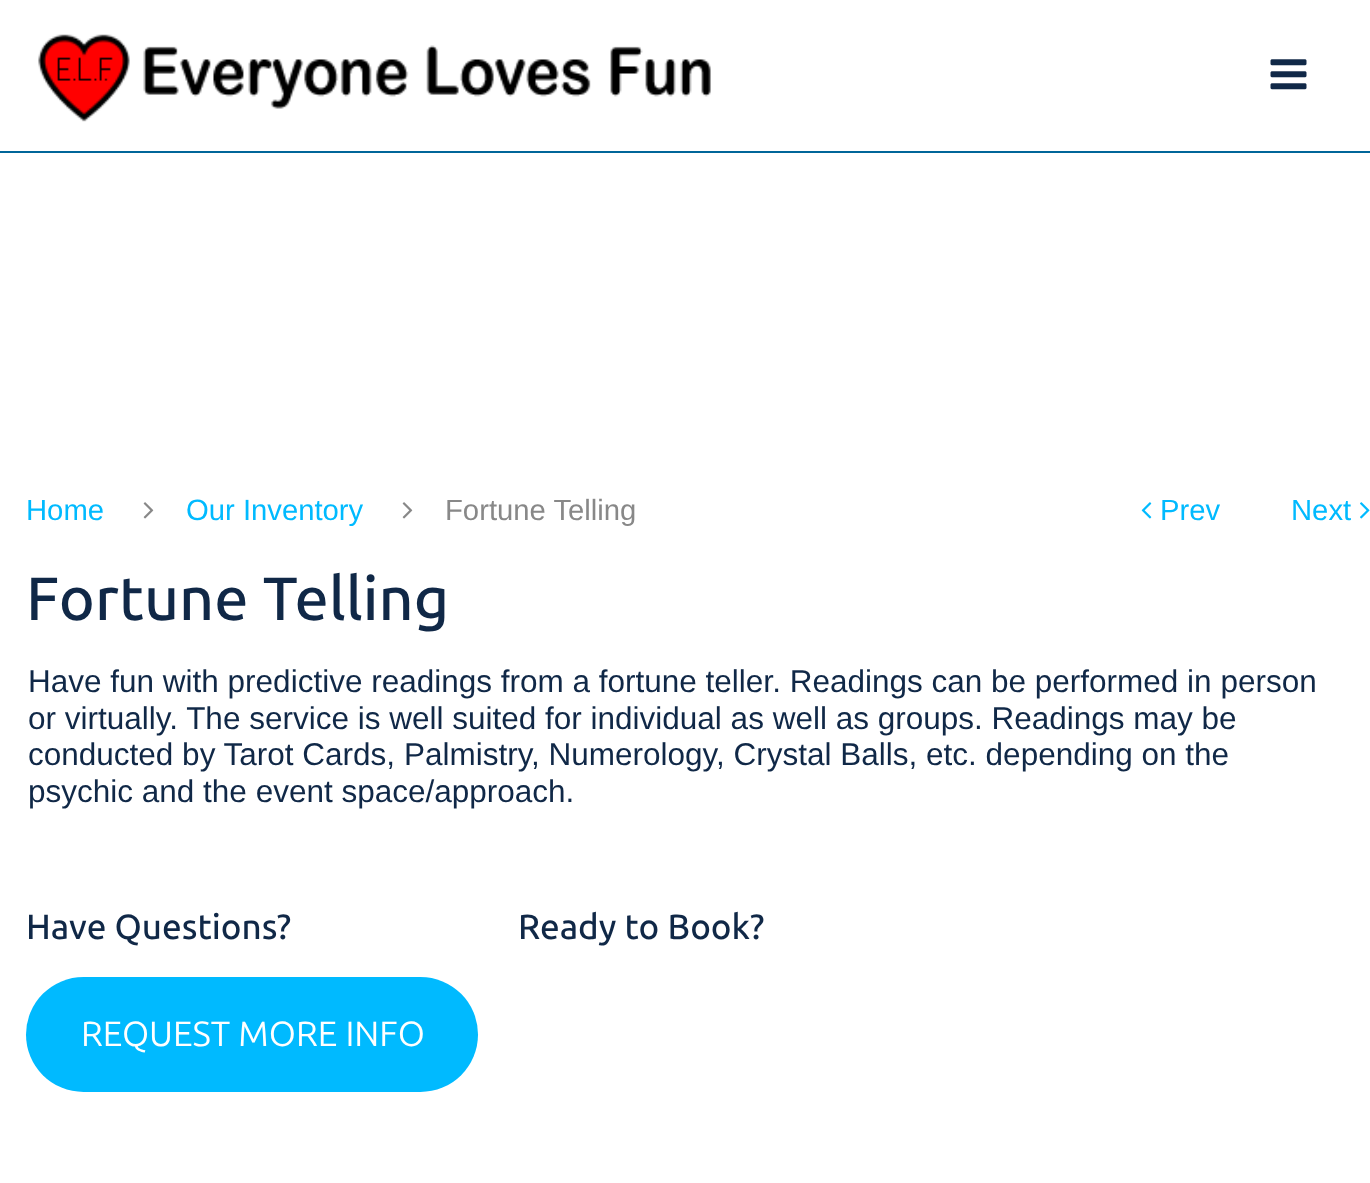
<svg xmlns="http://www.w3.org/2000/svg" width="1370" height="1183">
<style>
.a{font:29.25px Liberation Sans;fill:#00baff}
.b{font:29.25px Liberation Sans;fill:#888}
.c{font:500 61px Ubuntu;fill:#102847}
.d{font:31.5px Liberation Sans;fill:#102847}
.e{font:500 35px Ubuntu;fill:#102847}
.f{font:35px Ubuntu;fill:#fff}
</style>
<rect width="100%" height="100%" fill="#fff"/>
<path fill="#069" d="M0 151h1370v2H0z"/>
<image href="1.png" x="38" y="34" width="673" height="88"/>
<image href="2.png" x="1270" y="59" width="37" height="31"/>
<image href="3.png" x="143" y="502" width="11" height="17"/>
<image href="3.png" x="402" y="502" width="11" height="17"/>
<image href="4.png" x="1141" y="502" width="11" height="17"/>
<image href="5.png" x="1360" y="502" width="10" height="17"/>
<rect fill="#00baff" x="26" y="977" width="452" height="115" rx="57.5"/>
<text class="a" x="26" y="520">Home</text>
<text class="a" x="186" y="520">Our Inventory</text>
<text class="b" x="445" y="520">Fortune Telling</text>
<text class="a" x="1160" y="520">Prev</text>
<text class="a" x="1291" y="520">Next</text>
<text class="c" x="26" y="620">Fortune Telling</text>
<text class="d" x="28" y="692">Have fun with predictive readings from a fortune teller. Readings can be performed in person</text>
<text class="d" x="28" y="729">or virtually. The service is well suited for individual as well as groups. Readings may be</text>
<text class="d" x="28" y="765">conducted by Tarot Cards, Palmistry, Numerology, Crystal Balls, etc. depending on the</text>
<text class="d" x="28" y="802">psychic and the event space/approach.</text>
<text class="e" x="26" y="939">Have Questions?</text>
<text class="f" x="81" y="1046">REQUEST MORE INFO</text>
<text class="e" x="518" y="939">Ready to Book?</text>
</svg>
